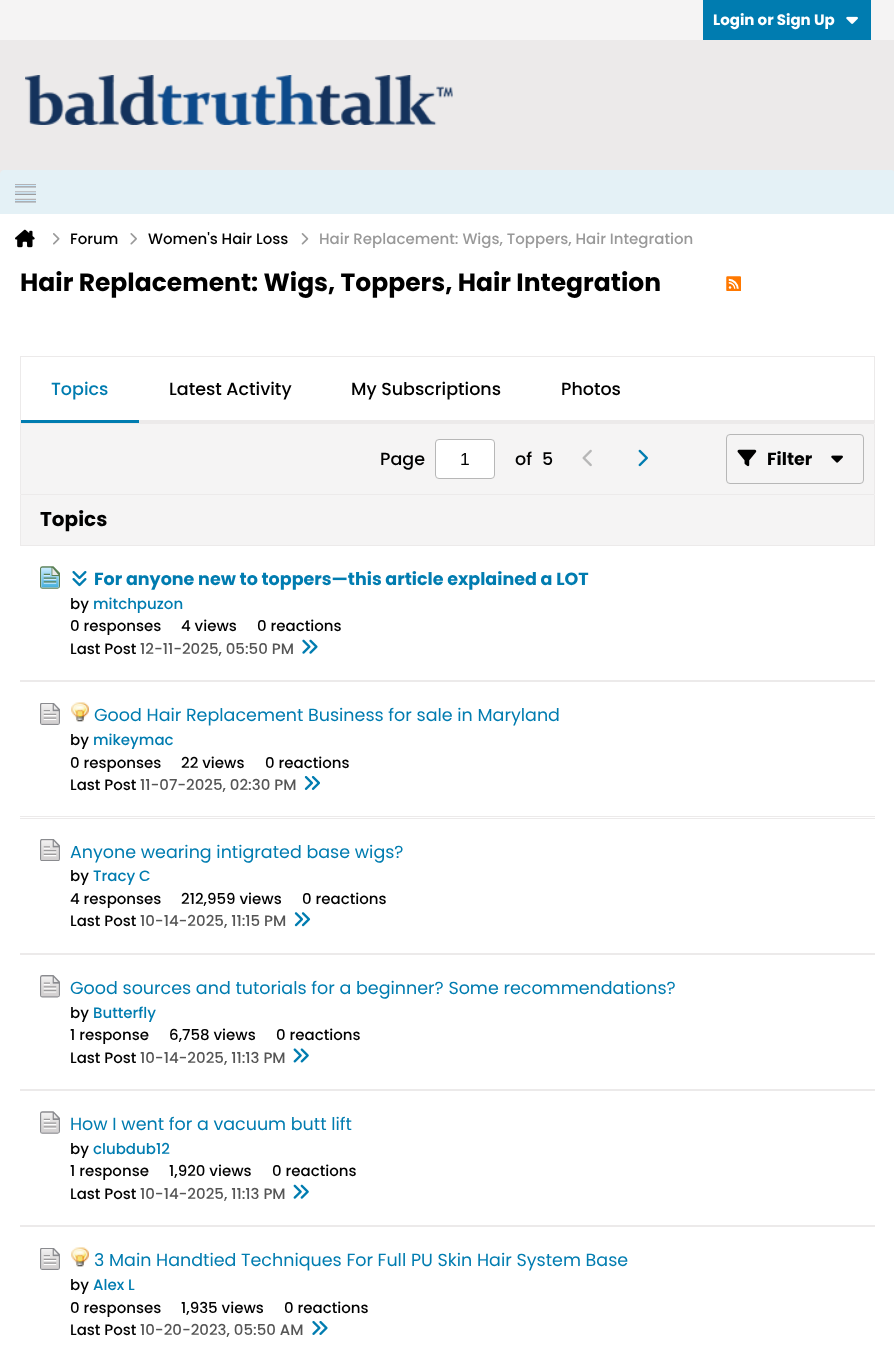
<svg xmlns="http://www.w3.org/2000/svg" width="894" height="1357">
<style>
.a{font:bold 15px Poppins;fill:#fff}
.b{font:500 15px Poppins;fill:#000}
.c{font:500 15px Poppins;fill:#999}
.d{font:bold 25px Poppins;fill:#000}
.e{font:500 17.5px Poppins;fill:#007cb0}
.f{font:500 17.5px Poppins;fill:#000}
.g{font:17.5px Liberation Sans;fill:#000}
.h{font:bold 17.5px Poppins;fill:#000}
.i{font:bold 20px Poppins;fill:#000}
.j{font:bold 17.5px Poppins;fill:#007cb0}
.k{font:500 15px Poppins;fill:#007cb0}
.l{font:500 15px Poppins;fill:#555}
.m{font:17.5px Poppins;fill:#007cb0}
</style>
<rect width="100%" height="100%" fill="#eceaea"/>
<path fill="#f5f4f4" d="M0 0h894v40H0z"/>
<path fill="#007cb0" d="M703 0h168v40H703z"/>
<image href="1.png" x="846" y="16" width="12" height="8"/>
<image href="2.png" x="25" y="75" width="428" height="50"/>
<path fill="#e4f1f6" d="M4 170h887c2 0 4 2 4 4v40h-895v-40c0-2 2-4 4-4z"/>
<image href="3.png" x="15" y="184" width="21" height="19"/>
<path fill="#fff" d="M0 214h894v1143H0z"/>
<image href="4.png" x="15" y="229" width="20" height="19"/>
<image href="5.png" x="53" y="233" width="7" height="12"/>
<image href="6.png" x="130" y="233" width="7" height="12"/>
<image href="7.png" x="301" y="233" width="8" height="12"/>
<image href="8.png" x="726" y="276" width="15" height="15"/>
<path fill="#eceaea" d="M20 356h855v1H20z"/>
<path fill="#eceaea" d="M874 356h1v67H874z"/>
<path fill="#eceaea" d="M139 420h736v3H139z"/>
<path fill="#eceaea" d="M20 356h1v67H20z"/>
<path fill="#007cb0" d="M21 420h118v3H21z"/>
<path fill="#f5f4f4" stroke="#eceaea" d="M20.5 423.5h854v71H20.5z"/>
<rect fill="#fff" stroke="#b7b7b7" x="435.5" y="439.5" width="59" height="39" rx="3.5"/>
<image href="9.png" x="582" y="449" width="10" height="18"/>
<image href="10.png" x="638" y="449" width="10" height="18"/>
<rect fill="none" stroke="#b7b7b7" x="726.5" y="434.5" width="137" height="49" rx="3.5"/>
<image href="11.png" x="737" y="449" width="20" height="18"/>
<image href="12.png" x="831" y="455" width="12" height="8"/>
<path fill="#f5f4f4" d="M21 495h853v50H21z"/>
<path fill="#eceaea" d="M874 495h1v50H874z"/>
<path fill="#eceaea" d="M20 495h1v50H20z"/>
<path fill="#eceaea" d="M20 545h855v1H20z"/>
<path fill="#eceaea" d="M20 680h855v2H20z"/>
<image href="13.png" x="40" y="566" width="20" height="23"/>
<image href="14.png" x="72" y="571" width="15" height="16"/>
<image href="15.png" x="302" y="639" width="16" height="15"/>
<path fill="#eceaea" d="M20 816h855v1H20z"/>
<image href="16.png" x="40" y="703" width="20" height="22"/>
<image href="17.png" x="71" y="702" width="18" height="20"/>
<image href="18.png" x="304" y="776" width="16" height="14"/>
<path fill="#eceaea" d="M20 818h855v1H20z"/>
<path fill="#eceaea" d="M20 953h855v2H20z"/>
<image href="19.png" x="40" y="839" width="20" height="22"/>
<image href="20.png" x="294" y="912" width="17" height="15"/>
<path fill="#eceaea" d="M20 1089h855v2H20z"/>
<image href="21.png" x="40" y="975" width="20" height="23"/>
<image href="22.png" x="293" y="1048" width="16" height="15"/>
<path fill="#eceaea" d="M20 1225h855v2H20z"/>
<image href="23.png" x="40" y="1111" width="20" height="23"/>
<image href="24.png" x="293" y="1184" width="16" height="15"/>
<image href="16.png" x="40" y="1248" width="20" height="22"/>
<image href="17.png" x="71" y="1247" width="18" height="20"/>
<image href="25.png" x="312" y="1321" width="16" height="14"/>
<text class="a" x="713" y="25">Login or Sign Up</text>
<text class="b" x="70" y="244">Forum</text>
<text class="b" x="148" y="244">Women's Hair Loss</text>
<text class="c" x="319" y="244">Hair Replacement: Wigs, Toppers, Hair Integration</text>
<text class="d" x="20" y="291">Hair Replacement: Wigs, Toppers, Hair Integration</text>
<text class="e" x="51" y="395">Topics</text>
<text class="f" x="169" y="395">Latest Activity</text>
<text class="f" x="351" y="395">My Subscriptions</text>
<text class="f" x="561" y="395">Photos</text>
<text class="f" x="380" y="465">Page</text>
<text class="g" x="460" y="465">1</text>
<text class="f" x="515" y="465">of</text>
<text class="f" x="542" y="465">5</text>
<text class="h" x="767" y="465">Filter</text>
<text class="i" x="40" y="526">Topics</text>
<text class="j" x="94" y="585">For anyone new to toppers—this article explained a LOT</text>
<text class="b" x="70" y="609">by</text>
<text class="k" x="93" y="609">mitchpuzon</text>
<text class="b" x="70" y="631">0 responses</text>
<text class="b" x="181" y="631">4 views</text>
<text class="b" x="257" y="631">0 reactions</text>
<text class="b" x="70" y="654">Last Post</text>
<text class="l" x="140" y="654">12-11-2025, 05:50 PM</text>
<text class="m" x="94" y="721">Good Hair Replacement Business for sale in Maryland</text>
<text class="b" x="70" y="745">by</text>
<text class="k" x="93" y="745">mikeymac</text>
<text class="b" x="70" y="768">0 responses</text>
<text class="b" x="181" y="768">22 views</text>
<text class="b" x="265" y="768">0 reactions</text>
<text class="b" x="70" y="790">Last Post</text>
<text class="l" x="140" y="790">11-07-2025, 02:30 PM</text>
<text class="m" x="70" y="858">Anyone wearing intigrated base wigs?</text>
<text class="b" x="70" y="881">by</text>
<text class="k" x="93" y="881">Tracy C</text>
<text class="b" x="70" y="904">4 responses</text>
<text class="b" x="181" y="904">212,959 views</text>
<text class="b" x="302" y="904">0 reactions</text>
<text class="b" x="70" y="926">Last Post</text>
<text class="l" x="140" y="926">10-14-2025, 11:15 PM</text>
<text class="m" x="70" y="994">Good sources and tutorials for a beginner? Some recommendations?</text>
<text class="b" x="70" y="1018">by</text>
<text class="k" x="93" y="1018">Butterfly</text>
<text class="b" x="70" y="1040">1 response</text>
<text class="b" x="169" y="1040">6,758 views</text>
<text class="b" x="276" y="1040">0 reactions</text>
<text class="b" x="70" y="1063">Last Post</text>
<text class="l" x="140" y="1063">10-14-2025, 11:13 PM</text>
<text class="m" x="70" y="1130">How I went for a vacuum butt lift</text>
<text class="b" x="70" y="1154">by</text>
<text class="k" x="93" y="1154">clubdub12</text>
<text class="b" x="70" y="1176">1 response</text>
<text class="b" x="169" y="1176">1,920 views</text>
<text class="b" x="272" y="1176">0 reactions</text>
<text class="b" x="70" y="1199">Last Post</text>
<text class="l" x="140" y="1199">10-14-2025, 11:13 PM</text>
<text class="m" x="94" y="1266">3 Main Handtied Techniques For Full PU Skin Hair System Base</text>
<text class="b" x="70" y="1290">by</text>
<text class="k" x="93" y="1290">Alex L</text>
<text class="b" x="70" y="1313">0 responses</text>
<text class="b" x="181" y="1313">1,935 views</text>
<text class="b" x="284" y="1313">0 reactions</text>
<text class="b" x="70" y="1335">Last Post</text>
<text class="l" x="140" y="1335">10-20-2023, 05:50 AM</text>
</svg>
